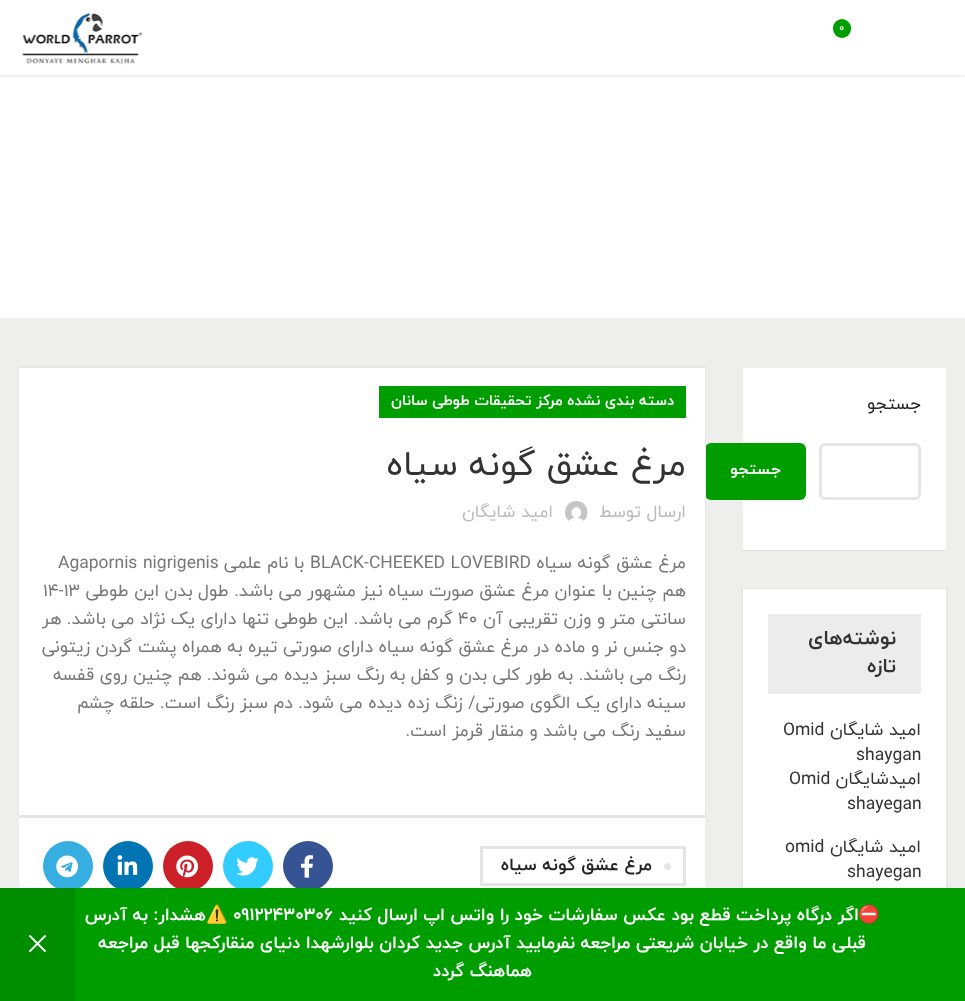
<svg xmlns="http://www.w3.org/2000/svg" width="965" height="1001">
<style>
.a{font:11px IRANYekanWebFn;fill:#fff}
.b{font:17.5px IRANYekanWebFn;direction:rtl;fill:#242424}
.c{font:bold 16px IRANYekanWebFn;direction:rtl;fill:#fff}
.d{font:bold 20px IRANYekanWebFn;direction:rtl;fill:#333}
.e{font:17.5px IRANYekanWebFn;direction:rtl;fill:#333}
.f{font:17.5px IRANYekanWebFn;fill:#333}
.g{font:bold 15px IRANYekanWebFn;direction:rtl;fill:#fff}
.h{font:35px IRANYekanWebFn;direction:rtl;fill:#333}
.i{font:17.5px IRANYekanWebFn;direction:rtl;fill:#bbb}
.j{font:17.5px IRANYekanWebFn;direction:rtl;fill:#777}
.k{font:17.5px IRANYekanWebFn;fill:#777}
.l{font:bold 17.5px IRANYekanWebFn;direction:rtl;fill:#242424}
.m{font:bold 17.5px Noto Color Emoji;direction:rtl;fill:#fff}
.n{font:bold 17.5px IRANYekanWebFn;direction:rtl;fill:#fff}
.o{font:bold 17.5px IRANYekanWebFn;fill:#fff}
</style>
<defs>
<clipPath id="clip1"><path d="M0 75h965v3H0z"/></clipPath>
</defs>
<rect width="100%" height="100%" fill="#fff"/>
<g clip-path="url(#clip1)">
<path fill="#0000001a" filter="blur(2px)" d="M0 1h965v75H0z"/>
</g>
<rect fill="#009d00" x="833" y="19" width="18" height="19" rx="9"/>
<image href="1.png" x="22" y="13" width="121" height="52"/>
<path fill="#eeeeec" d="M0 318h965v570H0z"/>
<path fill="#fff" d="M743 368h203v182H743z"/>
<path fill="#e4e4e4" d="M743 550h203v1H743z"/>
<rect fill="none" stroke="#e6e6e6" stroke-width="3" x="820.5" y="444.5" width="99" height="54" rx="4.5"/>
<rect fill="#009d00" x="705" y="443" width="101" height="57" rx="6"/>
<path fill="#e6e6e6" filter="blur(0.5px)" d="M741 588h207v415H741z"/>
<path fill="#fff" d="M743 589h203v299H743z"/>
<path fill="#ececec" d="M768 614h153v80H768z"/>
<path fill="#e6e6e6" filter="blur(0.5px)" d="M18 366h688v450H18z"/>
<path fill="#fff" d="M19 368h686v447H19z"/>
<path fill="#009d00" d="M379 386h307v32H379z"/>
<image href="2.png" x="565" y="501" width="23" height="21"/>
<path fill="#fff" d="M19 818h686v70H19z"/>
<path fill="#e4e4e4" d="M19 815h686v3H19z"/>
<path fill="none" stroke="#e4e4e4" stroke-width="3" d="M481.5 847.5h203v37H481.5z"/>
<circle fill="#e4e4e4" cx="667.5" cy="866.5" r="3.5"/>
<circle fill="#365493" cx="308" cy="866" r="25"/>
<image href="3.png" x="301" y="855" width="13" height="23"/>
<circle fill="#3cf" cx="248" cy="866" r="25"/>
<image href="4.png" x="236" y="857" width="23" height="19"/>
<circle fill="#cb2027" cx="188" cy="866" r="25"/>
<image href="5.png" x="176" y="855" width="23" height="23"/>
<circle fill="#0274b3" cx="128" cy="866" r="25"/>
<image href="6.png" x="117" y="855" width="21" height="20"/>
<circle fill="#37aee2" cx="68" cy="866" r="25"/>
<image href="7.png" x="56" y="855" width="23" height="23"/>
<path fill="#009d00" d="M75 888h890v113H75z"/>
<path fill="#008d00" d="M0 888h75v113H0z"/>
<image href="8.png" x="28" y="934" width="19" height="19"/>
<text class="a" x="839" y="31">0</text>
<text class="b" x="921" y="409">جستجو</text>
<text class="c" x="781" y="474">جستجو</text>
<text class="d" x="896" y="644">نوشته‌های</text>
<text class="d" x="896" y="672">تازه</text>
<text class="e" x="921" y="735">امید شایگان</text>
<text class="f" x="783" y="735">Omid</text>
<text class="f" x="856" y="760">shaygan</text>
<text class="e" x="921" y="784">امیدشایگان</text>
<text class="f" x="789" y="784">Omid</text>
<text class="f" x="847" y="809">shayegan</text>
<text class="e" x="921" y="852">امید شایگان</text>
<text class="f" x="785" y="852">omid</text>
<text class="f" x="847" y="877">shayegan</text>
<text class="g" x="674" y="405">دسته بندی نشده مرکز تحقیقات طوطی سانان</text>
<text class="h" x="686" y="475">مرغ عشق گونه سیاه</text>
<text class="i" x="686" y="517">ارسال توسط</text>
<text class="i" x="553" y="517">امید شایگان</text>
<text class="j" x="686" y="568">مرغ عشق گونه سیاه</text>
<text class="k" x="310" y="568">BLACK-CHEEKED LOVEBIRD</text>
<text class="j" x="304" y="568">با نام علمی</text>
<text class="k" x="58" y="568">Agapornis nigrigenis</text>
<text class="j" x="686" y="596">هم چنین با عنوان مرغ عشق صورت سیاه نیز مشهور می باشد. طول بدن این طوطی</text>
<text class="k" x="43" y="596">۱۴-۱۳</text>
<text class="j" x="686" y="624">سانتی متر و وزن تقریبی آن</text>
<text class="k" x="458" y="624">۴۰</text>
<text class="j" x="453" y="624">گرم می باشد. این طوطی تنها دارای یک نژاد می باشد. هر</text>
<text class="j" x="686" y="652">دو جنس نر و ماده در مرغ عشق گونه سیاه دارای صورتی تیره به همراه پشت گردن زیتونی</text>
<text class="j" x="686" y="680">رنگ می باشند. به طور کلی بدن و کفل به رنگ سبز دیده می شوند. هم چنین روی قفسه</text>
<text class="j" x="686" y="708">سینه دارای یک الگوی صورتی/ زنگ زده دیده می شود. دم سبز رنگ است. حلقه چشم</text>
<text class="j" x="686" y="736">سفید رنگ می باشد و منقار قرمز است.</text>
<text class="l" x="652" y="870">مرغ عشق گونه سیاه</text>
<text class="m" x="880" y="920">⛔️</text>
<text class="n" x="859" y="920">اگر درگاه پرداخت قطع بود عکس سفارشات خود را واتس اپ ارسال کنید</text>
<text class="o" x="233" y="920">09122430306</text>
<text class="n" x="206" y="920">هشدار: به آدرس</text>
<text class="m" x="228" y="920">⚠️</text>
<text class="n" x="866" y="948">قبلی ما واقع در خیابان شریعتی مراجعه نفرمایید آدرس جدید کردان بلوارشهدا دنیای منقارکجها قبل مراجعه</text>
<text class="n" x="532" y="976">هماهنگ گردد</text>
</svg>
